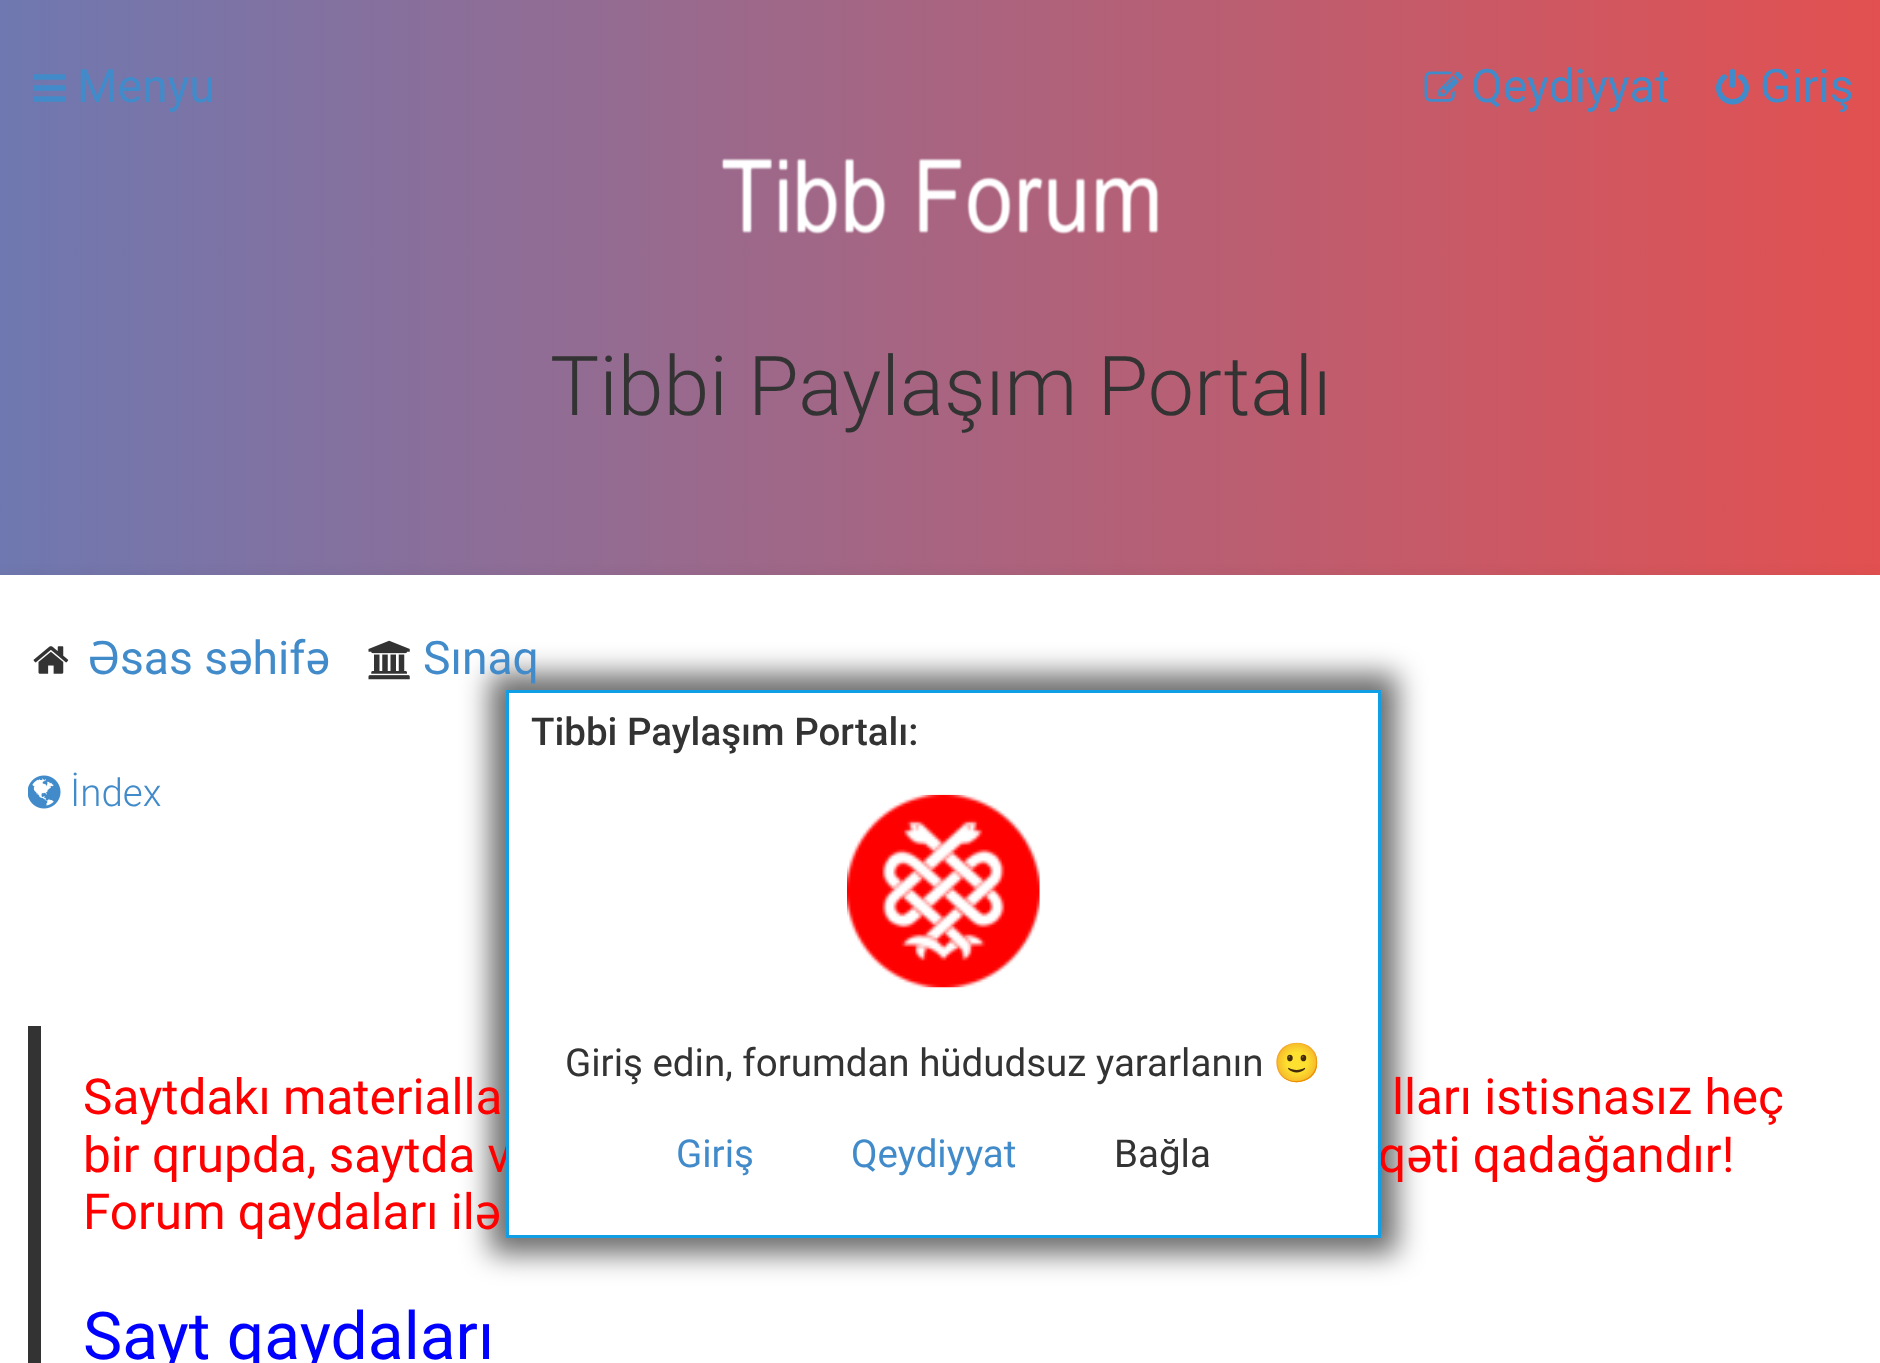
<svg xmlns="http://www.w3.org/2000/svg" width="1880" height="1363">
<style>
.a{font:46.25px Roboto;fill:#428bca}
.b{font:300 82.5px Roboto;fill:#333}
.c{font:300 38.5px Roboto;fill:#428bca}
.d{font:49.5px Roboto;fill:#f00}
.e{font:38.5px Roboto;fill:#333}
.f{font:38.5px Roboto;fill:#428bca}
.g{font:38.5px Noto Color Emoji;fill:#333}
.h{font:500 38.5px Roboto;fill:#333}
.i{font:66px Roboto;fill:#00f}
</style>
<defs>
<linearGradient id="g1" gradientUnits="userSpaceOnUse" x1="-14" y1="356" x2="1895" y2="356"><stop offset="0" stop-color="#6e78b1"/><stop offset="0.01" stop-color="#6f78b0"/><stop offset="1" stop-color="#e35050"/></linearGradient>
</defs>
<rect width="100%" height="100%" fill="#fff"/>
<path fill="url(#g1)" d="M0 0h1880v575H0z"/>
<image href="1.png" x="33" y="74" width="33" height="28"/>
<image href="2.png" x="1424" y="71" width="39" height="31"/>
<image href="3.png" x="1716" y="68" width="33" height="37"/>
<image href="4.png" x="721" y="158" width="438" height="76"/>
<path fill="#0000000d" filter="blur(7px)" d="M0 575h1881v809H0z"/>
<path fill="#fff" d="M0 575h1880v788H0z"/>
<image href="5.png" x="33" y="646" width="36" height="28"/>
<image href="6.png" x="368" y="640" width="42" height="40"/>
<image href="7.png" x="28" y="775" width="33" height="34"/>
<path fill="#00000094" filter="blur(14px)" d="M490 674h907v580H490z"/>
<path fill="#333" d="M28 1026h13v337H28z"/>
<text class="a" x="77" y="102">Menyu</text>
<text class="a" x="1471" y="102">Qeydiyyat</text>
<text class="a" x="1760" y="102">Giriş</text>
<text class="b" x="550" y="415">Tibbi Paylaşım Portalı</text>
<text class="a" x="88" y="674">Əsas səhifə</text>
<text class="a" x="423" y="674">Sınaq</text>
<text class="c" x="70" y="806">İndex</text>
<text class="d" x="83" y="1114">Saytdakı materialla</text>
<text class="d" x="1392" y="1114">lları istisnasız heç</text>
<text class="d" x="83" y="1172">bir qrupda, saytda v</text>
<text class="d" x="1378" y="1172">qəti qadağandır!</text>
<path fill="#fff" stroke="#109fe5" stroke-width="3" d="M507.5 691.5h872v545H507.5z"/>
<text class="e" x="1114" y="1167">Bağla</text>
<text class="f" x="851" y="1167">Qeydiyyat</text>
<text class="f" x="676" y="1167">Giriş</text>
<text class="g" x="1273" y="1076">🙂</text>
<text class="e" x="565" y="1076">Giriş edin, forumdan hüdudsuz yararlanın</text>
<image href="8.png" x="847" y="794" width="193" height="194"/>
<text class="h" x="531" y="745">Tibbi Paylaşım Portalı:</text>
<text class="d" x="83" y="1229">Forum qaydaları ilə</text>
<text class="i" x="83" y="1359">Sayt qaydaları</text>
</svg>
